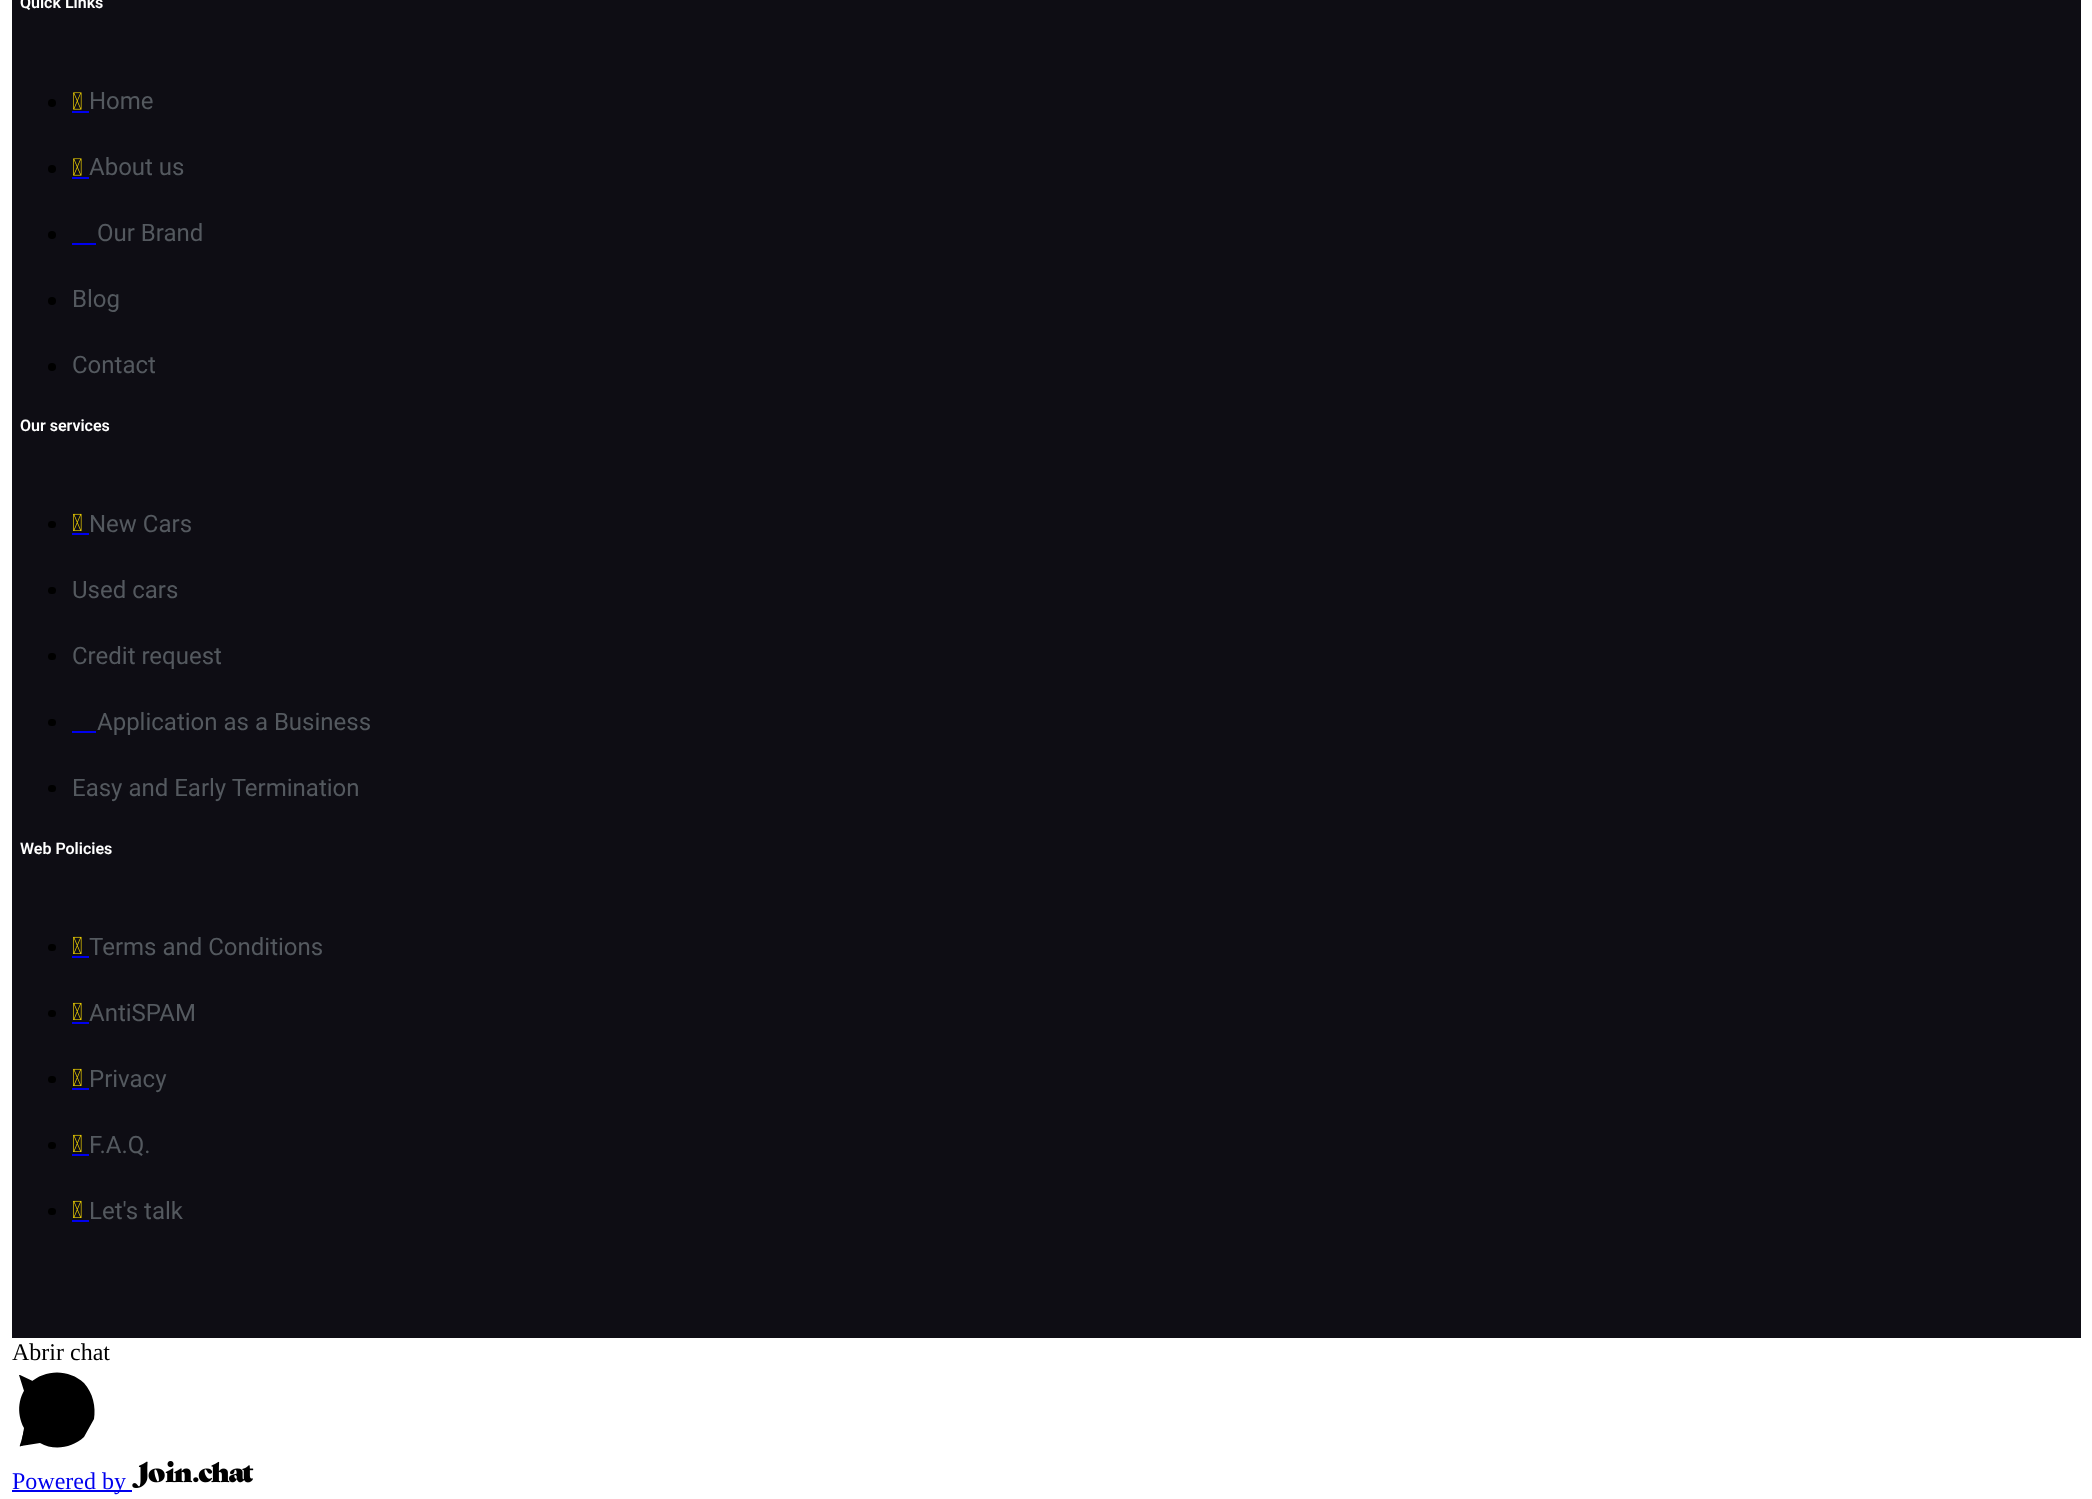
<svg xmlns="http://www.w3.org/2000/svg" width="2092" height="1499">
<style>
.a{font:600 16px Roboto;fill:#fff}
.b{font:24px Roboto;fill:#54595f}
.c{font:24px Liberation Serif;fill:#000}
.d{font:24px Liberation Serif;fill:#00e}
</style>
<rect width="100%" height="100%" fill="#fff"/>
<path fill="#0e0d14" d="M12 0h2069v1338H12z"/>
<circle fill="#000" cx="52" cy="103" r="4"/>
<image href="1.png" x="73" y="92" width="9" height="18"/>
<path fill="#00e" d="M72 111h17v2H72z"/>
<circle fill="#000" cx="52" cy="169" r="4"/>
<image href="1.png" x="73" y="158" width="9" height="18"/>
<path fill="#00e" d="M72 177h17v2H72z"/>
<circle fill="#000" cx="52" cy="235" r="4"/>
<path fill="#00e" d="M72 243h24v2H72z"/>
<circle fill="#000" cx="52" cy="301" r="4"/>
<circle fill="#000" cx="52" cy="367" r="4"/>
<rect fill="#000" x="48" y="521" width="8" height="7" rx="3.5"/>
<image href="2.png" x="73" y="513" width="9" height="18"/>
<path fill="#00e" d="M72 533h17v2H72z"/>
<rect fill="#000" x="48" y="587" width="8" height="7" rx="3.5"/>
<rect fill="#000" x="48" y="653" width="8" height="7" rx="3.5"/>
<rect fill="#000" x="48" y="719" width="8" height="7" rx="3.5"/>
<path fill="#00e" d="M72 731h24v2H72z"/>
<rect fill="#000" x="48" y="785" width="8" height="7" rx="3.5"/>
<rect fill="#000" x="48" y="944" width="8" height="7" rx="3.5"/>
<image href="2.png" x="73" y="936" width="9" height="18"/>
<path fill="#00e" d="M72 956h17v2H72z"/>
<rect fill="#000" x="48" y="1010" width="8" height="7" rx="3.5"/>
<image href="2.png" x="73" y="1002" width="9" height="18"/>
<path fill="#00e" d="M72 1022h17v2H72z"/>
<rect fill="#000" x="48" y="1076" width="8" height="7" rx="3.5"/>
<image href="2.png" x="73" y="1068" width="9" height="18"/>
<path fill="#00e" d="M72 1088h17v2H72z"/>
<rect fill="#000" x="48" y="1142" width="8" height="7" rx="3.5"/>
<image href="2.png" x="73" y="1134" width="9" height="18"/>
<path fill="#00e" d="M72 1154h17v2H72z"/>
<rect fill="#000" x="48" y="1208" width="8" height="7" rx="3.5"/>
<image href="2.png" x="73" y="1200" width="9" height="18"/>
<path fill="#00e" d="M72 1220h17v2H72z"/>
<path fill="#000" d="M50 1410h-20l-11-35h1l74 35l-62 30c-12 6-14 10-11 2l5-19"/>
<path fill="#000" d="M84 1437c-12 11-30 14-44 6l-19 3l3-18c-8-15-6-33 6-45c15-14 39-14 54 0c9 10 12 24 10 36"/>
<path fill="#00e" d="M12 1490h120v2H12z"/>
<image href="3.png" x="132" y="1461" width="122" height="27"/>
<text class="a" x="20" y="8">Quick Links</text>
<text class="b" x="89" y="109">Home</text>
<text class="b" x="89" y="175">About us</text>
<text class="b" x="97" y="241">Our Brand</text>
<text class="b" x="72" y="307">Blog</text>
<text class="b" x="72" y="373">Contact</text>
<text class="a" x="20" y="431">Our services</text>
<text class="b" x="89" y="532">New Cars</text>
<text class="b" x="72" y="598">Used cars</text>
<text class="b" x="72" y="664">Credit request</text>
<text class="b" x="97" y="730">Application as a Business</text>
<text class="b" x="72" y="796">Easy and Early Termination</text>
<text class="a" x="20" y="854">Web Policies</text>
<text class="b" x="89" y="955">Terms and Conditions</text>
<text class="b" x="89" y="1021">AntiSPAM</text>
<text class="b" x="89" y="1087">Privacy</text>
<text class="b" x="89" y="1153">F.A.Q.</text>
<text class="b" x="89" y="1219">Let's talk</text>
<text class="c" x="12" y="1360">Abrir chat</text>
<text class="d" x="12" y="1489">Powered by</text>
</svg>
